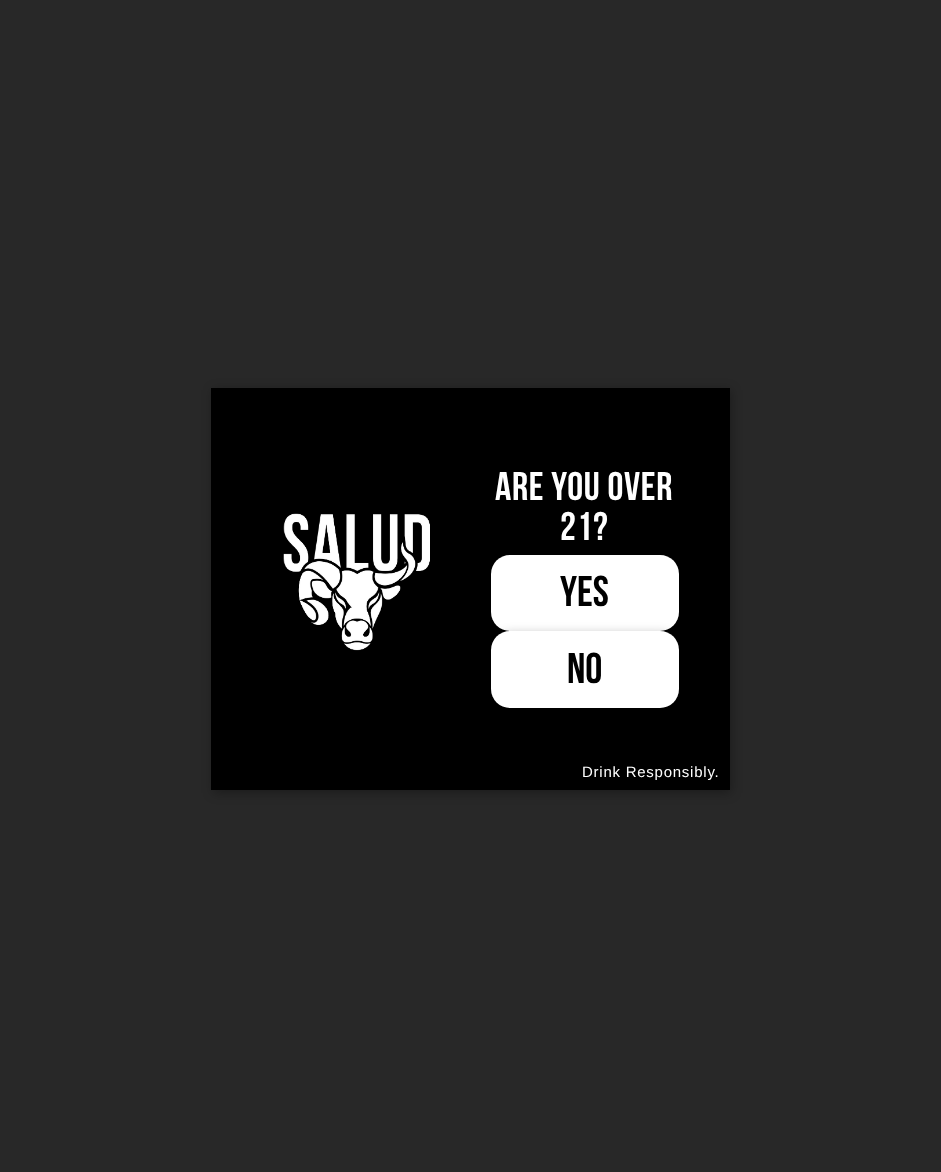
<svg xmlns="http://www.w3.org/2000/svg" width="941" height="1172">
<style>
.a{font:40px Bebas Neue;letter-spacing:0.75px;fill:#fff}
.b{font:43px Bebas Neue;fill:#000}
.c{font:15px Liberation Sans;letter-spacing:0.75px;fill:#fff}
</style>
<rect width="100%" height="100%" fill="#282828"/>
<path fill="#0000004d" filter="blur(5.5px)" d="M213 390h518v403H213z"/>
<path fill="#000" d="M211 388h519v402H211z"/>
<image href="1.png" x="283" y="513" width="147" height="138"/>
<rect fill="#fff" x="491" y="555" width="188" height="76" rx="19"/>
<rect fill="#0000004d" filter="blur(5.5px)" x="493" y="634" width="187" height="76" rx="19"/>
<rect fill="#fff" x="491" y="631" width="188" height="77" rx="19"/>
<text class="a" x="495" y="500">ARE YOU OVER</text>
<text class="a" x="560" y="540">21?</text>
<text class="b" x="560" y="606">YES</text>
<text class="b" x="567" y="683">NO</text>
<text class="c" x="582" y="777">Drink Responsibly.</text>
</svg>
